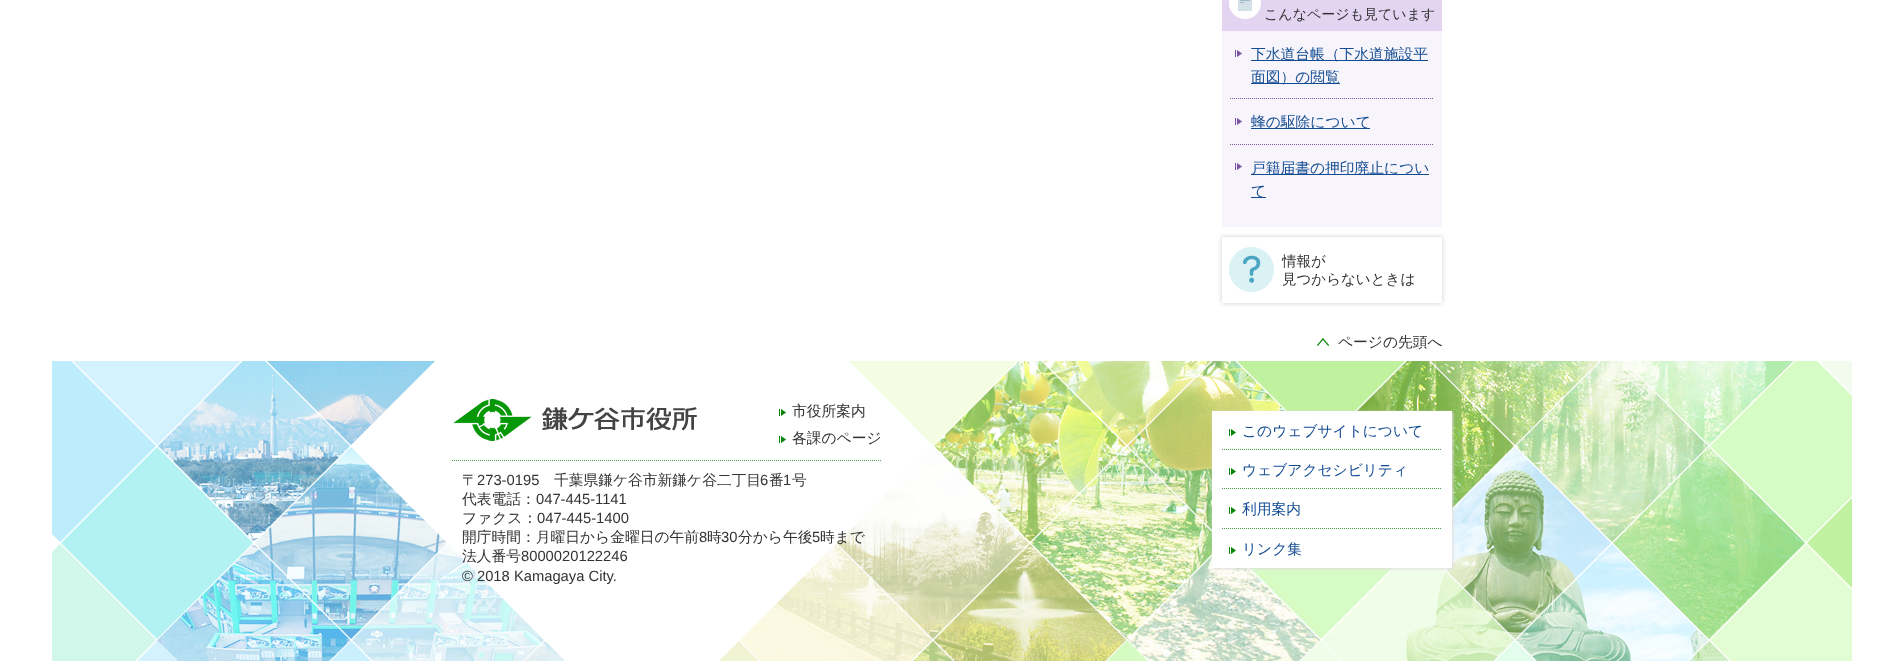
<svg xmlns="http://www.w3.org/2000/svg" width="1904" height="664">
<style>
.a{font:500 14px WenQuanYi Zen Hei;fill:#333}
.b{font:500 14.75px WenQuanYi Zen Hei;fill:#134c92}
.c{font:500 14.5px WenQuanYi Zen Hei;fill:#333}
.d{font:500 14.75px WenQuanYi Zen Hei;fill:#333}
.e{font:14.75px Liberation Sans;fill:#333}
</style>
<defs>
<clipPath id="clip1"><path d="M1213 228h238v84h-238zm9 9h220v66h-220z" clip-rule="evenodd"/></clipPath>
</defs>
<rect width="100%" height="100%" fill="#fff"/>
<path fill="#f7f4fb" d="M1222 31h220v196H1222z"/>
<path fill="#e3d4f2" d="M1222 0h220v31H1222z"/>
<image href="1.png" x="1229" y="0" width="32" height="19"/>
<image href="2.png" x="1235" y="50" width="7" height="7"/>
<path fill="#134c92" d="M1251 60h177v1H1251z"/>
<path fill="#134c92" d="M1251 83h89v1H1251z"/>
<path fill="none" stroke="#7a54a0" stroke-dasharray="1 1" d="M1230 98.5h204"/>
<image href="2.png" x="1235" y="118" width="7" height="7"/>
<path fill="#134c92" d="M1251 128h119v1H1251z"/>
<path fill="none" stroke="#7a54a0" stroke-dasharray="1 1" d="M1230 144.5h204"/>
<image href="2.png" x="1235" y="163" width="7" height="7"/>
<path fill="#134c92" d="M1251 174h178v1H1251z"/>
<path fill="#134c92" d="M1251 197h15v1H1251z"/>
<g clip-path="url(#clip1)">
<path fill="#ccc" filter="blur(2.5px)" d="M1222 237h220v66H1222z"/>
</g>
<image href="3.png" x="1229" y="247" width="45" height="45"/>
<image href="4.png" x="1317" y="338" width="12" height="8"/>
<image href="5.png" x="52" y="361" width="1800" height="300"/>
<path fill="none" stroke="#43a23d" stroke-dasharray="1 1" d="M452 460.5h429"/>
<image href="6.png" x="453" y="399" width="244" height="42"/>
<image href="7.png" x="779" y="409" width="7" height="7"/>
<image href="7.png" x="779" y="436" width="7" height="7"/>
<path fill="#ddd" filter="blur(1.5px)" d="M1213 412h240v157H1213z"/>
<path fill="#fff" d="M1212 411h240v157H1212z"/>
<image href="7.png" x="1229" y="429" width="7" height="7"/>
<path fill="none" stroke="#43a23d" stroke-dasharray="1 1" d="M1222 449.5h220"/>
<image href="7.png" x="1229" y="468" width="7" height="7"/>
<path fill="none" stroke="#43a23d" stroke-dasharray="1 1" d="M1222 488.5h220"/>
<image href="7.png" x="1229" y="507" width="7" height="7"/>
<path fill="none" stroke="#43a23d" stroke-dasharray="1 1" d="M1222 528.5h220"/>
<image href="7.png" x="1229" y="547" width="7" height="7"/>
<text class="a" x="1264" y="19">こんなページも見ています</text>
<text class="b" x="1251" y="59">下水道台帳（下水道施設平</text>
<text class="b" x="1251" y="82">面図）の閲覧</text>
<text class="b" x="1251" y="127">蜂の駆除について</text>
<text class="b" x="1251" y="173">戸籍届書の押印廃止につい</text>
<text class="b" x="1251" y="196">て</text>
<text class="c" x="1282" y="266">情報が</text>
<text class="c" x="1282" y="284">見つからないときは</text>
<text class="d" x="1338" y="347">ページの先頭へ</text>
<text class="d" x="792" y="416">市役所案内</text>
<text class="d" x="792" y="443">各課のページ</text>
<text class="d" x="462" y="485">〒</text>
<text class="e" x="477" y="485">273-0195</text>
<text class="d" x="554" y="485">千葉県鎌ケ谷市新鎌ケ谷二丁目</text>
<text class="e" x="760" y="485">6</text>
<text class="d" x="769" y="485">番</text>
<text class="e" x="783" y="485">1</text>
<text class="d" x="792" y="485">号</text>
<text class="d" x="462" y="504">代表電話：</text>
<text class="e" x="536" y="504">047-445-1141</text>
<text class="d" x="462" y="523">ファクス：</text>
<text class="e" x="537" y="523">047-445-1400</text>
<text class="d" x="462" y="542">開庁時間：月曜日から金曜日の午前</text>
<text class="e" x="699" y="542">8</text>
<text class="d" x="707" y="542">時</text>
<text class="e" x="721" y="542">30</text>
<text class="d" x="738" y="542">分から午後</text>
<text class="e" x="812" y="542">5</text>
<text class="d" x="820" y="542">時まで</text>
<text class="d" x="462" y="561">法人番号</text>
<text class="e" x="521" y="561">8000020122246</text>
<text class="b" x="1242" y="436">このウェブサイトについて</text>
<text class="b" x="1242" y="475">ウェブアクセシビリティ</text>
<text class="b" x="1242" y="514">利用案内</text>
<text class="b" x="1242" y="554">リンク集</text>
<text class="e" x="462" y="581">© 2018 Kamagaya City.</text>
</svg>
